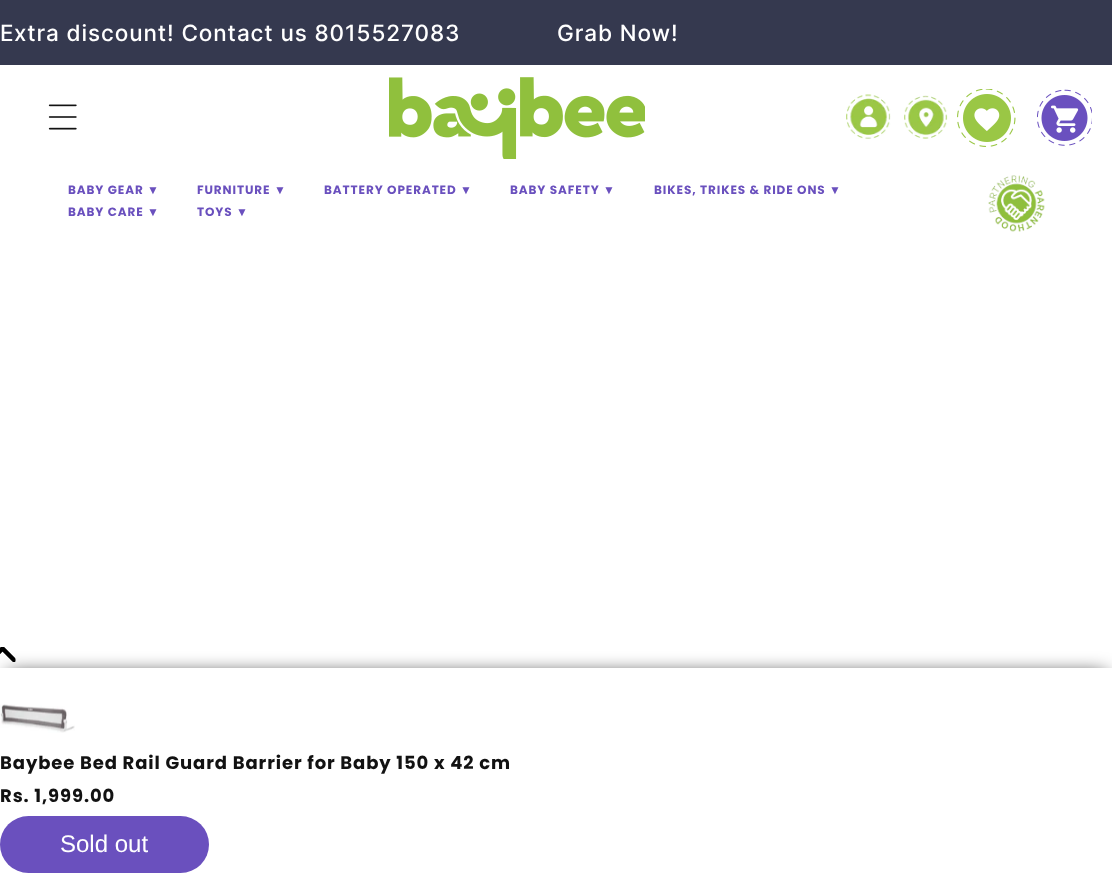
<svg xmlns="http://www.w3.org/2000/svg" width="1112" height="881">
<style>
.a{font:500 22.5px Inter;letter-spacing:0.9px;fill:#fff}
.b{font:bold 12px poppins;letter-spacing:0.9px;fill:#6a50be}
.c{font:bold 12px Liberation Serif;letter-spacing:0.9px;fill:#6a50be}
.d{font:bold 18px poppins;letter-spacing:0.9px;fill:#121212}
.e{font:24px Liberation Sans;fill:#fff}
</style>
<defs>
<clipPath id="clip1"><path d="M15.5 647v15h-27v-15z"/></clipPath>
</defs>
<rect width="100%" height="100%" fill="#fff"/>
<path fill="#35394f" d="M0 0h1112v65H0z"/>
<image href="1.png" x="48" y="104" width="29" height="26"/>
<image href="2.png" x="389" y="77" width="256" height="82"/>
<image href="3.png" x="846" y="94" width="45" height="45"/>
<image href="4.png" x="904" y="95" width="44" height="44"/>
<image href="5.png" x="957" y="89" width="59" height="58"/>
<image href="6.png" x="1037" y="89" width="55" height="57"/>
<image href="7.png" x="988" y="175" width="57" height="57"/>
<g clip-path="url(#clip1)">
<path fill="none" stroke="#000" stroke-width="4.5" stroke-linecap="round" stroke-linejoin="round" d="M14 660l-11.5-11.5l-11 11.5"/>
</g>
<path fill="#000" filter="blur(10px)" d="M8 675h1098v200H8z"/>
<path fill="#fff" d="M0 668h1112v213H0z"/>
<image href="8.png" x="0" y="704" width="75" height="29"/>
<rect fill="#6a50be" y="816" width="209" height="57" rx="28.5"/>
<text class="a" x="0" y="41">E</text>
<text class="a" x="14" y="41">xtra discount! Contact us 8015527083</text>
<text class="a" x="557" y="41">Grab Now!</text>
<text class="b" x="68" y="194">BABY GEAR</text>
<text class="c" x="147" y="194">▼</text>
<text class="b" x="197" y="194">FURNITURE</text>
<text class="c" x="274" y="194">▼</text>
<text class="b" x="324" y="194">BATTERY OPERATED</text>
<text class="c" x="460" y="194">▼</text>
<text class="b" x="510" y="194">BABY SAFETY</text>
<text class="c" x="603" y="194">▼</text>
<text class="b" x="654" y="194">BIKES, TRIKES &amp; RIDE ONS</text>
<text class="c" x="829" y="194">▼</text>
<text class="b" x="68" y="216">BABY CARE</text>
<text class="c" x="147" y="216">▼</text>
<text class="b" x="197" y="216">TOYS</text>
<text class="c" x="236" y="216">▼</text>
<text class="d" x="0" y="769">Baybee Bed Rail Guard Barrier for Baby 150 x 42 cm</text>
<text class="d" x="0" y="802">Rs. 1,999.00</text>
<text class="e" x="60" y="852">Sold out</text>
</svg>
